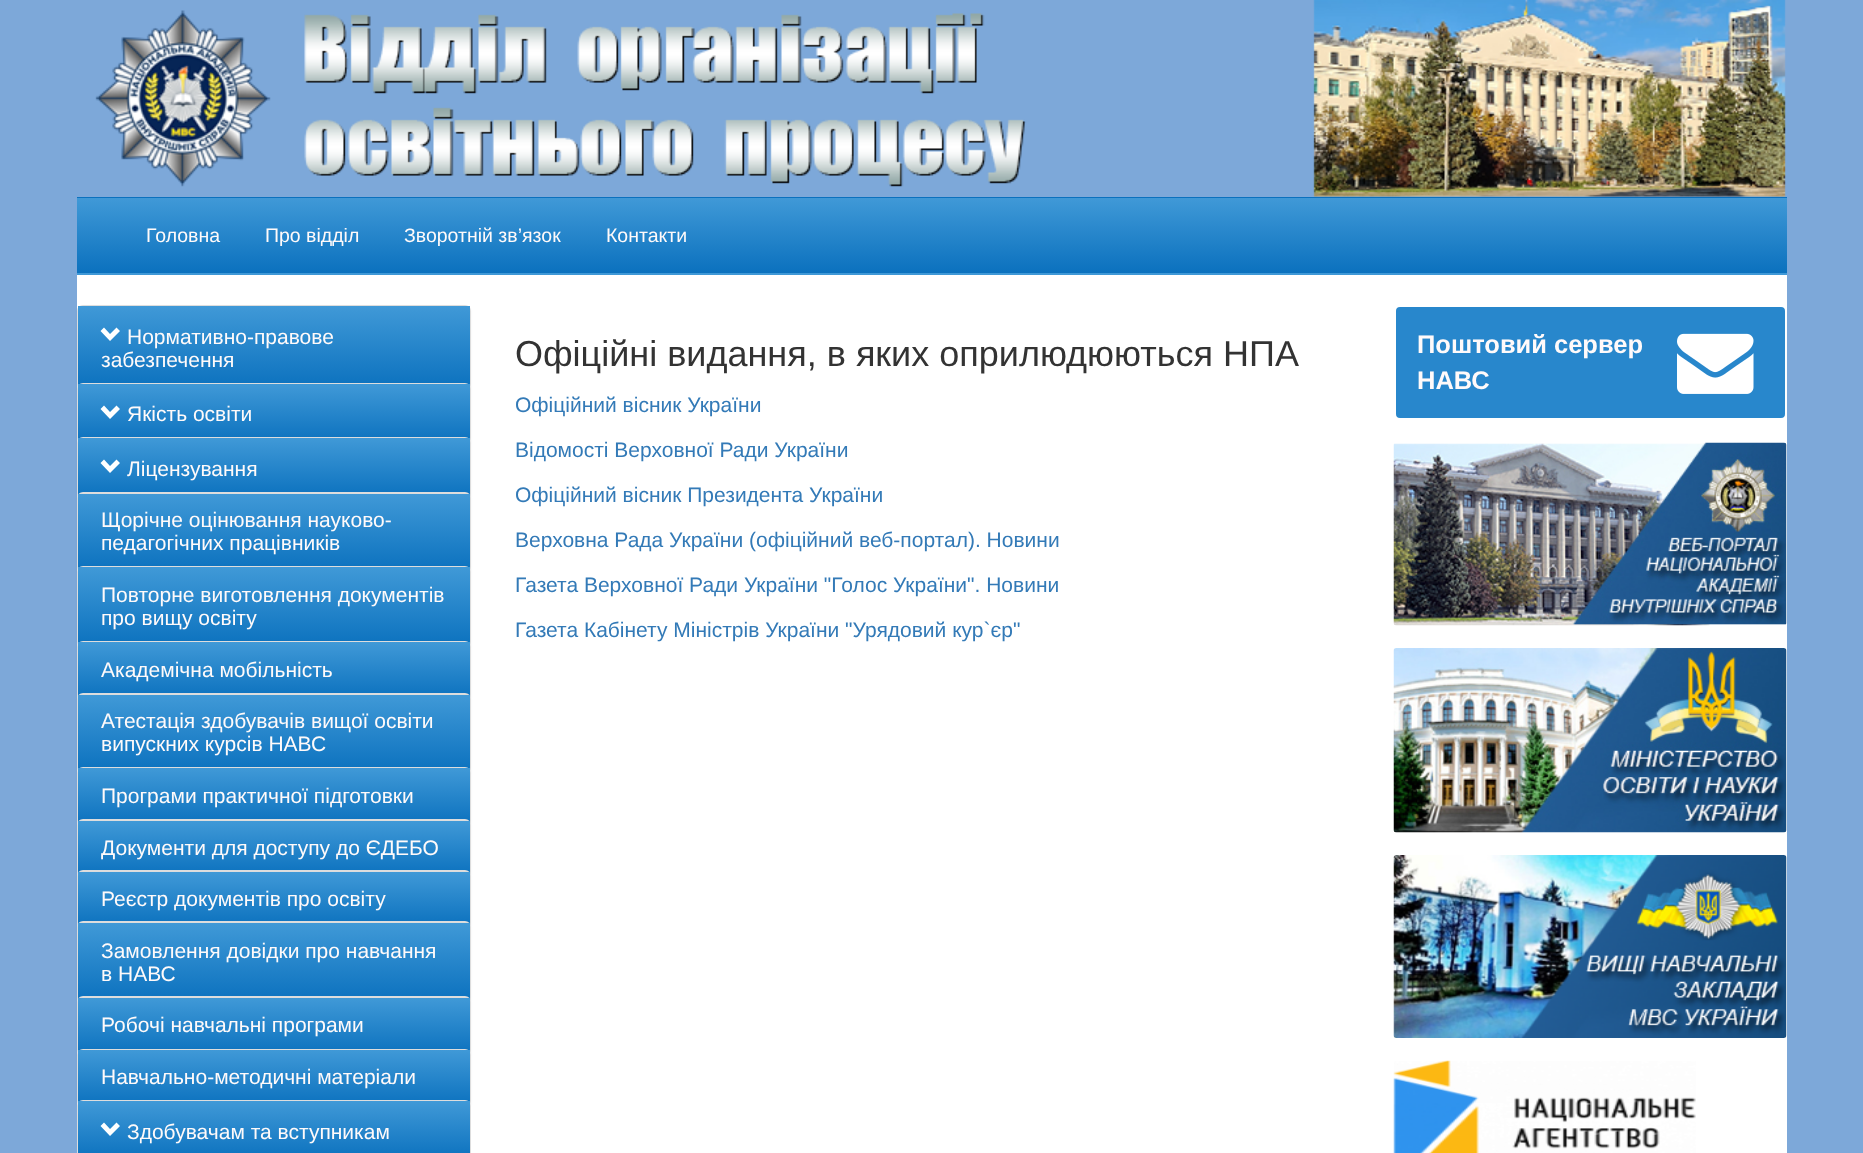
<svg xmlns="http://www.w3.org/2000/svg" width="1863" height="1153">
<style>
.a{font:19.5px Liberation Sans;fill:#fffafa}
.b{font:21px Liberation Sans;fill:#fffafa}
.c{font:36px Liberation Sans;fill:#333}
.d{font:21px Liberation Sans;fill:#337ab7}
.e{font:bold 25.5px Liberation Sans;fill:#fffafa}
</style>
<defs>
<linearGradient id="g1" gradientUnits="userSpaceOnUse" x1="932" y1="123" x2="932" y2="198"><stop offset="0" stop-color="#4099d7"/><stop offset="1" stop-color="#0b71be"/></linearGradient>
<linearGradient id="g2" gradientUnits="userSpaceOnUse" x1="932" y1="198" x2="932" y2="273"><stop offset="0" stop-color="#4099d7"/><stop offset="1" stop-color="#0b71be"/></linearGradient>
<linearGradient id="g3" gradientUnits="userSpaceOnUse" x1="932" y1="273" x2="932" y2="348"><stop offset="0" stop-color="#4099d7"/><stop offset="1" stop-color="#0b71be"/></linearGradient>
<linearGradient id="g4" gradientUnits="userSpaceOnUse" x1="78" y1="389" x2="78" y2="306"><stop offset="0" stop-color="#0b71be"/><stop offset="1" stop-color="#4099d7"/></linearGradient>
<linearGradient id="g5" gradientUnits="userSpaceOnUse" x1="78" y1="443" x2="78" y2="384"><stop offset="0" stop-color="#0b71be"/><stop offset="1" stop-color="#4099d7"/></linearGradient>
<linearGradient id="g6" gradientUnits="userSpaceOnUse" x1="78" y1="498" x2="78" y2="438"><stop offset="0" stop-color="#0b71be"/><stop offset="1" stop-color="#4099d7"/></linearGradient>
<linearGradient id="g7" gradientUnits="userSpaceOnUse" x1="78" y1="572" x2="78" y2="494"><stop offset="0" stop-color="#0b71be"/><stop offset="1" stop-color="#4099d7"/></linearGradient>
<linearGradient id="g8" gradientUnits="userSpaceOnUse" x1="78" y1="647" x2="78" y2="567"><stop offset="0" stop-color="#0b71be"/><stop offset="1" stop-color="#4099d7"/></linearGradient>
<linearGradient id="g9" gradientUnits="userSpaceOnUse" x1="78" y1="699" x2="78" y2="642"><stop offset="0" stop-color="#0b71be"/><stop offset="1" stop-color="#4099d7"/></linearGradient>
<linearGradient id="g10" gradientUnits="userSpaceOnUse" x1="78" y1="773" x2="78" y2="695"><stop offset="0" stop-color="#0b71be"/><stop offset="1" stop-color="#4099d7"/></linearGradient>
<linearGradient id="g11" gradientUnits="userSpaceOnUse" x1="78" y1="825" x2="78" y2="768"><stop offset="0" stop-color="#0b71be"/><stop offset="1" stop-color="#4099d7"/></linearGradient>
<linearGradient id="g12" gradientUnits="userSpaceOnUse" x1="78" y1="876" x2="78" y2="821"><stop offset="0" stop-color="#0b71be"/><stop offset="1" stop-color="#4099d7"/></linearGradient>
<linearGradient id="g13" gradientUnits="userSpaceOnUse" x1="78" y1="927" x2="78" y2="872"><stop offset="0" stop-color="#0b71be"/><stop offset="1" stop-color="#4099d7"/></linearGradient>
<linearGradient id="g14" gradientUnits="userSpaceOnUse" x1="78" y1="1002" x2="78" y2="923"><stop offset="0" stop-color="#0b71be"/><stop offset="1" stop-color="#4099d7"/></linearGradient>
<linearGradient id="g15" gradientUnits="userSpaceOnUse" x1="78" y1="1055" x2="78" y2="998"><stop offset="0" stop-color="#0b71be"/><stop offset="1" stop-color="#4099d7"/></linearGradient>
<linearGradient id="g16" gradientUnits="userSpaceOnUse" x1="78" y1="1106" x2="78" y2="1050"><stop offset="0" stop-color="#0b71be"/><stop offset="1" stop-color="#4099d7"/></linearGradient>
<linearGradient id="g17" gradientUnits="userSpaceOnUse" x1="78" y1="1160" x2="78" y2="1101"><stop offset="0" stop-color="#0b71be"/><stop offset="1" stop-color="#4099d7"/></linearGradient>
</defs>
<rect width="100%" height="100%" fill="#7da8d9"/>
<image href="1.png" x="95" y="0" width="1691" height="197"/>
<path fill="#fff" d="M77 275h1710v878H77z"/>
<path fill="url(#g1)" d="M77 197h1710v1H77z"/>
<path fill="url(#g2)" d="M77 198h1710v75H77z"/>
<path fill="url(#g3)" d="M77 273h1710v2H77z"/>
<rect fill="#0000000d" filter="blur(1px)" x="77" y="306" width="394" height="86" rx="6"/>
<rect fill="none" stroke="#ddd" stroke-width="2" x="78" y="306" width="392" height="83" rx="5"/>
<path fill="url(#g4)" d="M78 306h392v78H78z"/>
<path fill="#fff" d="M120 331l-10 10l-9.5-10l3.5-3.5l6 6.5l6.5-6.5z"/>
<rect fill="#0000000d" filter="blur(1px)" x="77" y="384" width="394" height="62" rx="6"/>
<rect fill="none" stroke="#ddd" stroke-width="2" x="78" y="384" width="392" height="59" rx="5"/>
<path fill="url(#g5)" d="M78 384h392v54H78z"/>
<path fill="#fff" d="M120 409l-10 10l-9.5-10l3.5-3.5l6 6.5l6.5-6.5z"/>
<rect fill="#0000000d" filter="blur(1px)" x="77" y="438" width="394" height="63" rx="6"/>
<rect fill="none" stroke="#ddd" stroke-width="2" x="78" y="438" width="392" height="61" rx="5"/>
<path fill="url(#g6)" d="M78 438h392v56H78z"/>
<path fill="#fff" d="M120 463l-10 10l-9.5-10l3.5-3.5l6 6.5l6.5-6.5z"/>
<rect fill="#0000000d" filter="blur(1px)" x="77" y="494" width="394" height="81" rx="6"/>
<rect fill="none" stroke="#ddd" stroke-width="2" x="78" y="493" width="392" height="79" rx="5"/>
<path fill="url(#g7)" d="M78 494h392v73H78z"/>
<rect fill="#0000000d" filter="blur(1px)" x="77" y="567" width="394" height="83" rx="6"/>
<rect fill="none" stroke="#ddd" stroke-width="2" x="78" y="567" width="392" height="80" rx="5"/>
<path fill="url(#g8)" d="M78 567h392v75H78z"/>
<rect fill="#0000000d" filter="blur(1px)" x="77" y="642" width="394" height="60" rx="6"/>
<rect fill="none" stroke="#ddd" stroke-width="2" x="78" y="642" width="392" height="58" rx="5"/>
<path fill="url(#g9)" d="M78 642h392v53H78z"/>
<rect fill="#0000000d" filter="blur(1px)" x="77" y="695" width="394" height="81" rx="6"/>
<rect fill="none" stroke="#ddd" stroke-width="2" x="78" y="694" width="392" height="79" rx="5"/>
<path fill="url(#g10)" d="M78 695h392v73H78z"/>
<rect fill="#0000000d" filter="blur(1px)" x="77" y="768" width="394" height="60" rx="6"/>
<rect fill="none" stroke="#ddd" stroke-width="2" x="78" y="768" width="392" height="58" rx="5"/>
<path fill="url(#g11)" d="M78 768h392v53H78z"/>
<rect fill="#0000000d" filter="blur(1px)" x="77" y="821" width="394" height="58" rx="6"/>
<rect fill="none" stroke="#ddd" stroke-width="2" x="78" y="820" width="392" height="57" rx="5"/>
<path fill="url(#g12)" d="M78 821h392v51H78z"/>
<rect fill="#0000000d" filter="blur(1px)" x="77" y="872" width="394" height="58" rx="6"/>
<rect fill="none" stroke="#ddd" stroke-width="2" x="78" y="871" width="392" height="57" rx="5"/>
<path fill="url(#g13)" d="M78 872h392v51H78z"/>
<rect fill="#0000000d" filter="blur(1px)" x="77" y="923" width="394" height="82" rx="6"/>
<rect fill="none" stroke="#ddd" stroke-width="2" x="78" y="922" width="392" height="81" rx="5"/>
<path fill="url(#g14)" d="M78 923h392v75H78z"/>
<rect fill="#0000000d" filter="blur(1px)" x="77" y="998" width="394" height="60" rx="6"/>
<rect fill="none" stroke="#ddd" stroke-width="2" x="78" y="997" width="392" height="58" rx="5"/>
<path fill="url(#g15)" d="M78 998h392v52H78z"/>
<rect fill="#0000000d" filter="blur(1px)" x="77" y="1050" width="394" height="59" rx="6"/>
<rect fill="none" stroke="#ddd" stroke-width="2" x="78" y="1050" width="392" height="56" rx="5"/>
<path fill="url(#g16)" d="M78 1050h392v51H78z"/>
<rect fill="none" stroke="#ddd" stroke-width="2" x="78" y="1101" width="392" height="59" rx="5"/>
<path fill="url(#g17)" d="M78 1101h392v52H78z"/>
<path fill="#fff" d="M120 1126l-10 10l-9.5-10l3.5-3.5l6 6.5l6.5-6.5z"/>
<rect fill="#2887cc" stroke="#fff" stroke-width="2" x="1395" y="306" width="391" height="113" rx="5"/>
<image href="2.png" x="1677" y="333" width="77" height="61"/>
<image href="3.png" x="1393" y="442" width="394" height="184"/>
<image href="4.png" x="1393" y="648" width="394" height="185"/>
<image href="5.png" x="1393" y="855" width="394" height="183"/>
<image href="6.png" x="1393" y="1060" width="303" height="93"/>
<text class="a" x="146" y="242">Головна</text>
<text class="a" x="265" y="242">Про відділ</text>
<text class="a" x="404" y="242">Зворотній зв’язок</text>
<text class="a" x="606" y="242">Контакти</text>
<text class="b" x="127" y="344">Нормативно-правове</text>
<text class="b" x="101" y="367">забезпечення</text>
<text class="b" x="127" y="421">Якість освіти</text>
<text class="b" x="127" y="476">Ліцензування</text>
<text class="b" x="101" y="527">Щорічне оцінювання науково-</text>
<text class="b" x="101" y="550">педагогічних працівників</text>
<text class="b" x="101" y="602">Повторне виготовлення документів</text>
<text class="b" x="101" y="625">про вищу освіту</text>
<text class="b" x="101" y="677">Академічна мобільність</text>
<text class="b" x="101" y="728">Атестація здобувачів вищої освіти</text>
<text class="b" x="101" y="751">випускних курсів НАВС</text>
<text class="b" x="101" y="803">Програми практичної підготовки</text>
<text class="b" x="101" y="855">Документи для доступу до ЄДЕБО</text>
<text class="b" x="101" y="906">Реєстр документів про освіту</text>
<text class="b" x="101" y="958">Замовлення довідки про навчання</text>
<text class="b" x="101" y="981">в НАВС</text>
<text class="b" x="101" y="1032">Робочі навчальні програми</text>
<text class="b" x="101" y="1084">Навчально-методичні матеріали</text>
<text class="b" x="127" y="1139">Здобувачам та вступникам</text>
<text class="c" x="515" y="366">Офіційні видання, в яких оприлюдюються НПА</text>
<text class="d" x="515" y="412">Офіційний вісник України</text>
<text class="d" x="515" y="457">Відомості Верховної Ради України</text>
<text class="d" x="515" y="502">Офіційний вісник Президента України</text>
<text class="d" x="515" y="547">Верховна Рада України (офіційний веб-портал). Новини</text>
<text class="d" x="515" y="592">Газета Верховної Ради України "Голос України". Новини</text>
<text class="d" x="515" y="637">Газета Кабінету Міністрів України "Урядовий кур`єр"</text>
<text class="e" x="1417" y="353">Поштовий сервер</text>
<text class="e" x="1417" y="389">НАВС</text>
</svg>
